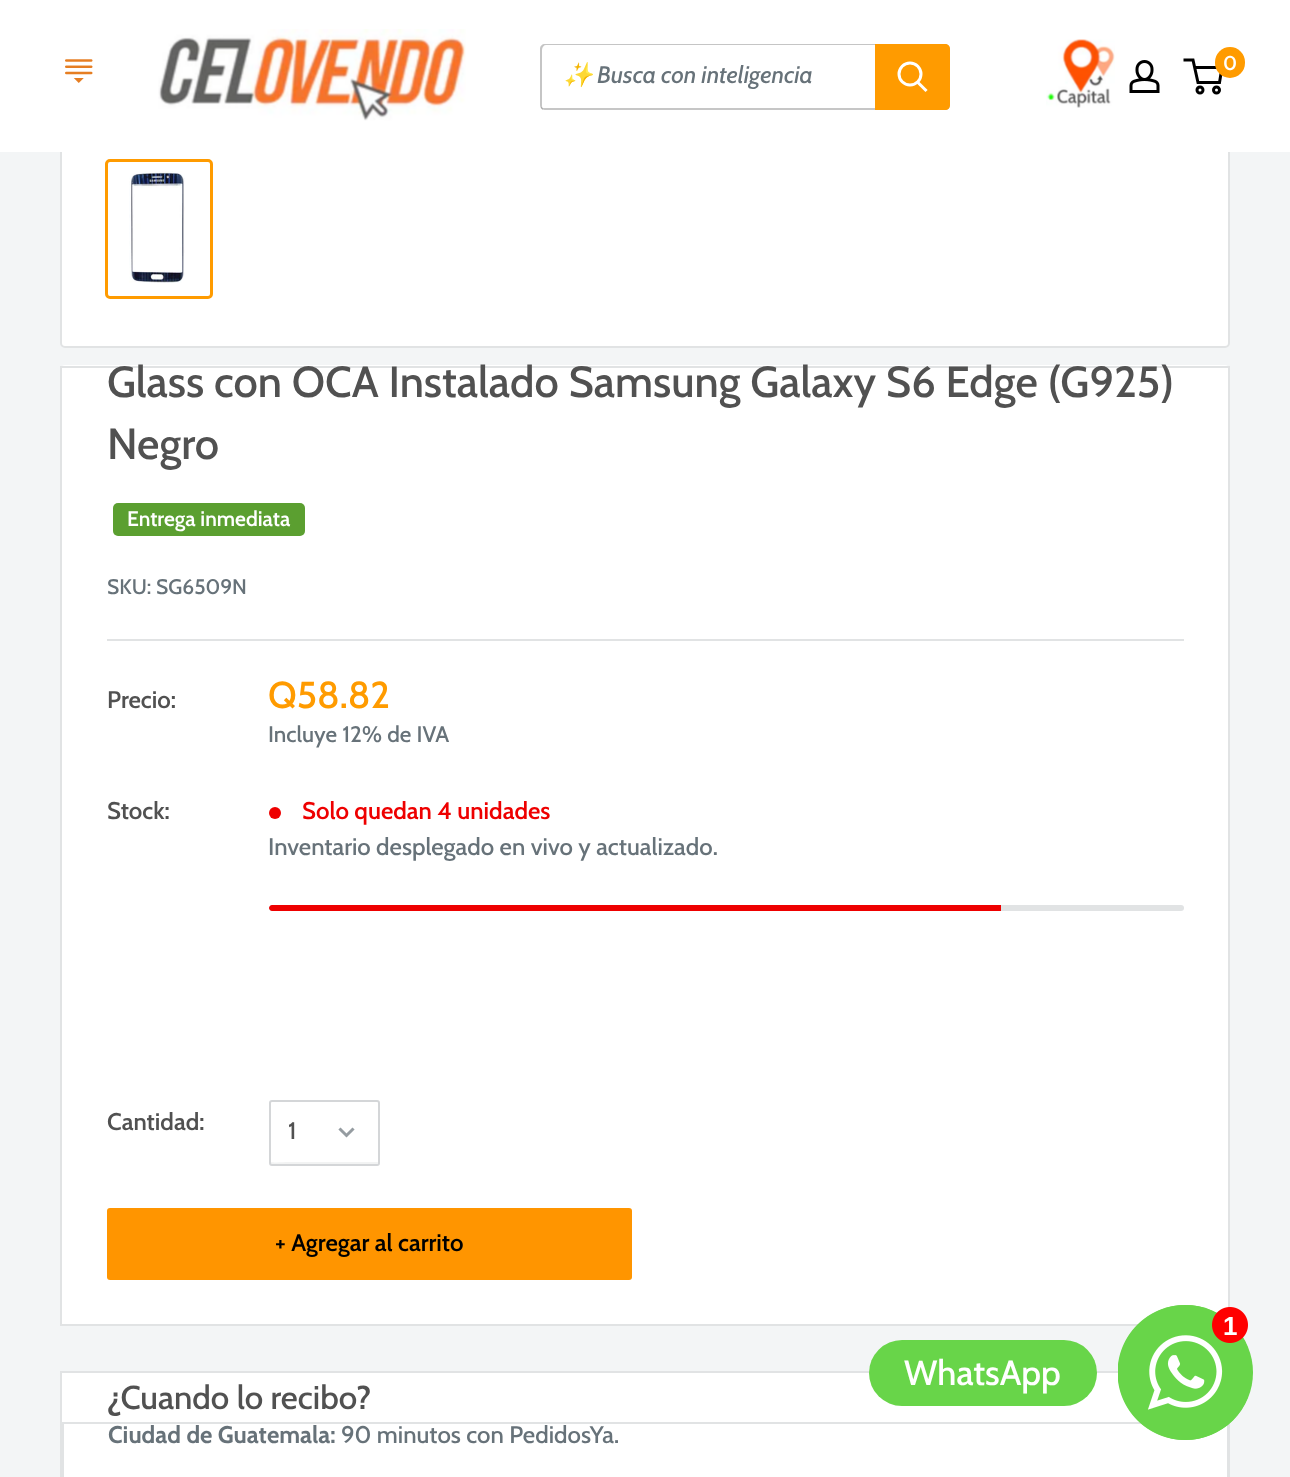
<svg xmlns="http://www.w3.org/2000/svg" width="1290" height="1477">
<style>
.a{font:italic 24px Noto Color Emoji;fill:#677279}
.b{font:italic 500 24px Cabin;fill:#677279}
.c{font:600 20px Cabin;fill:#fff}
.d{font:500 43.5px Cabin;fill:#515151}
.e{font:600 21px Cabin;fill:#fff}
.f{font:500 21px Cabin;fill:#677279}
.g{font:600 24px Cabin;fill:#515151}
.h{font:500 37.5px Cabin;fill:#ff9b00}
.i{font:500 22.5px Cabin;fill:#677279}
.j{font:600 24px Cabin;fill:#e00}
.k{font:500 24px Cabin;fill:#677279}
.l{font:500 24px Cabin;fill:#515151}
.m{font:600 24px Cabin;fill:#000}
.n{font:500 33px Cabin;fill:#515151}
.o{font:bold 24px Cabin;fill:#677279}
.p{font:bold 26px Liberation Sans;fill:#fff}
.q{font:500 35px Cabin;fill:#fff}
</style>
<defs>
<clipPath id="clip1"><path d="M563 62h258v28H563z"/></clipPath>
</defs>
<rect width="100%" height="100%" fill="#f3f5f6"/>
<rect fill="#fff" stroke="#e1e3e4" stroke-width="2" x="61" y="-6" width="1168" height="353" rx="4"/>
<path fill="#fff" d="M0 0h1290v152H0z"/>
<image href="1.png" x="65" y="59" width="28" height="24"/>
<image href="2.png" x="158" y="29" width="308" height="92"/>
<path fill="#c6c6c6" d="M541 107c0 2 2 3 4 3h400c3 0 5-2 5-5v-56c0-2-1-3-2-4v59c0 2-2 4-4 4h-401z"/>
<path fill="#4040404d" d="M546 45h400l3 1c-1-1-3-2-4-2h-400c-3 0-5 2-5 5v56c0 2 1 4 3 5c0-1-1-2-1-4v-56c0-3 2-5 4-5z"/>
<path fill="#ff9b00" d="M875 44h70c3 0 5 2 5 5v56c0 3-2 5-5 5h-70z"/>
<path fill="none" stroke="#fff" stroke-width="3" stroke-linecap="square" d="M925.5 90l-7.5-7.5"/>
<circle fill="none" stroke="#fff" stroke-width="3" cx="910" cy="74" r="11"/>
<image href="3.png" x="1046" y="39" width="69" height="69"/>
<image href="4.png" x="1129" y="60" width="31" height="33"/>
<circle fill="none" stroke="#000" stroke-width="3" cx="1200" cy="90" r="3"/>
<circle fill="none" stroke="#000" stroke-width="3" cx="1216.5" cy="90" r="3"/>
<path fill="none" stroke="#000" stroke-width="3" d="M1194.5 67.5h27.5l-2.5 15h-21.5l-5-22.5h-9.5"/>
<rect fill="#ff9b00" x="1215" y="47" width="30" height="31" rx="15"/>
<rect fill="none" stroke="#ff9b00" stroke-width="3" x="106.5" y="160.5" width="105" height="137" rx="3.5"/>
<image href="5.png" x="129" y="171" width="56" height="112"/>
<path fill="#fff" d="M65 365c-3 0-5 3-5 5c0-2 2-4 4-4h1162c2 0 4 2 4 4c0-2-2-5-5-5z"/>
<path fill="#fff" stroke="#e1e3e4" stroke-width="2" d="M61 367h1168v958H61z"/>
<rect fill="#5b9f30" x="113" y="503" width="192" height="33" rx="5"/>
<path fill="#e1e3e4" d="M107 639h1077v2H107z"/>
<circle fill="#e00" cx="275" cy="813" r="6"/>
<rect fill="#e1e3e4" x="269" y="905" width="915" height="6" rx="3"/>
<path fill="#e00" d="M272 905h729v6h-729c-1.5 0-3-1.5-3-3c0-1.5 1.5-3 3-3z"/>
<path fill="#f2f3f3" d="M270 1161c0 8 15 3 19 3h70c0 0 19 4 19-2h-89c-4 0-15 1-18 0z"/>
<rect fill="none" stroke="#d4d6d8" stroke-width="2" x="270" y="1101" width="109" height="64" rx="2"/>
<path fill="none" stroke="#959ca1" stroke-width="3" stroke-linecap="square" d="M352.5 1129.5l-6 6l-6-6"/>
<rect fill="#ff9500" x="107" y="1208" width="525" height="72" rx="3"/>
<path fill="#fff" d="M62 1373h1078v49H62z"/>
<path fill="none" stroke="#e1e3e4" stroke-width="2" d="M61 1372h1168v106H61z"/>
<path fill="#fff" stroke="#e1e3e4" stroke-width="2" d="M63 1423h1165v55H63z"/>
<circle fill="#68d549" cx="1185.5" cy="1372.5" r="67.5"/>
<image href="6.png" x="1118" y="1305" width="130" height="135"/>
<rect fill="#68d549" x="869" y="1340" width="228" height="66" rx="33"/>
<g clip-path="url(#clip1)">
<text class="a" x="563" y="83">✨</text>
</g>
<text class="b" x="597" y="83">Busca con inteligencia</text>
<text class="c" x="1223" y="70">0</text>
<text class="d" x="107" y="397">Glass con OCA Instalado Samsung Galaxy S6 Edge (G925)</text>
<text class="d" x="107" y="459">Negro</text>
<text class="e" x="127" y="526">Entrega inmediata</text>
<text class="f" x="107" y="594">SKU: SG6509N</text>
<text class="g" x="107" y="708">Precio:</text>
<text class="h" x="268" y="708">Q58.82</text>
<text class="i" x="268" y="742">Incluye 12% de IVA</text>
<text class="g" x="107" y="819">Stock:</text>
<text class="j" x="302" y="819">Solo quedan 4 unidades</text>
<text class="k" x="268" y="855">Inventario desplegado en vivo y actualizado.</text>
<text class="g" x="107" y="1130">Cantidad:</text>
<text class="l" x="288" y="1139">1</text>
<text class="m" x="275" y="1251">+ Agregar al carrito</text>
<text class="n" x="107" y="1409">¿Cuando lo recibo?</text>
<text class="o" x="108" y="1443">Ciudad de Guatemala:</text>
<text class="k" x="341" y="1443">90 minutos con PedidosYa.</text>
<text class="p" x="1223" y="1335">1</text>
<text class="q" x="904" y="1385">WhatsApp</text>
</svg>
